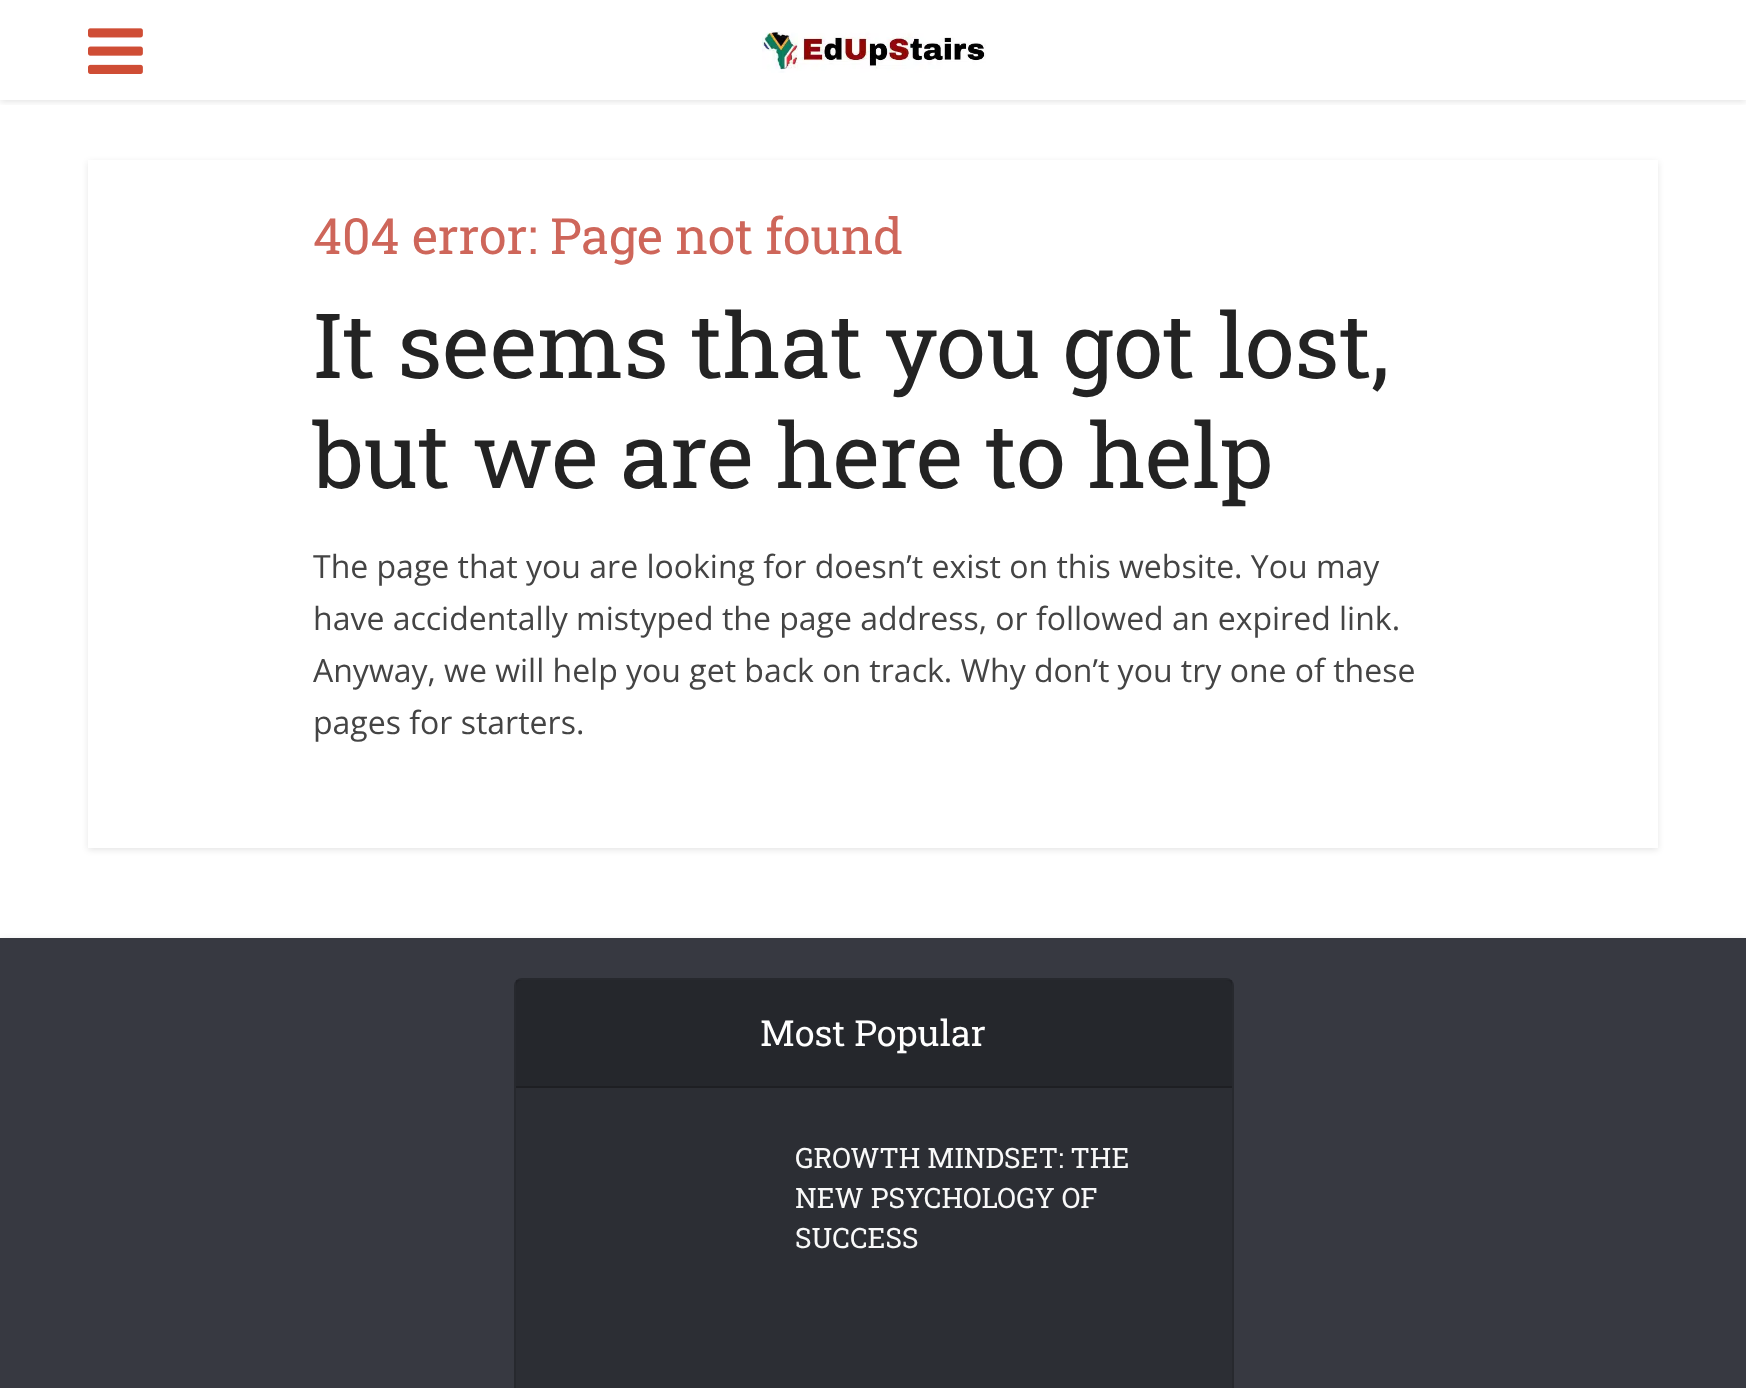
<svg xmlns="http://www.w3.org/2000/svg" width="1746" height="1388">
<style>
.a{font:50px Roboto Slab;fill:#ce665a}
.b{font:90px Roboto Slab;fill:#232323}
.c{font:32px Open Sans;fill:#444}
.d{font:36px Roboto Slab;fill:#fff}
.e{font:28px Roboto Slab;fill:#f9f9f9}
</style>
<defs>
<clipPath id="clip1"><path d="M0 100h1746v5H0z"/></clipPath>
<clipPath id="clip2"><path d="M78 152h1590v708h-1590zm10 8h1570v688h-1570z" clip-rule="evenodd"/></clipPath>
</defs>
<rect width="100%" height="100%" fill="#fff"/>
<g clip-path="url(#clip1)">
<path fill="#0000001a" filter="blur(3px)" d="M0 2h1746v100H0z"/>
</g>
<image href="1.png" x="88" y="28" width="55" height="46"/>
<image href="2.png" x="762" y="31" width="224" height="42"/>
<g clip-path="url(#clip2)">
<path fill="#0000001a" filter="blur(3px)" d="M88 162h1570v688H88z"/>
</g>
<path fill="#00000033" filter="blur(4px)" d="M0 942h1746v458H0z"/>
<path fill="#373941" d="M0 938h1746v450H0z"/>
<rect fill="#2c2e34" x="514" y="978" width="720" height="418" rx="8"/>
<rect fill="none" stroke="#0000001a" stroke-width="2" x="515" y="979" width="718" height="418" rx="7"/>
<path fill="#00000026" d="M516 980h716v106H516z"/>
<path fill="#1e1f23" d="M516 1086h716v2H516z"/>
<text class="a" x="313" y="254">404 error: Page not found</text>
<text class="b" x="313" y="378">It seems that you got lost,</text>
<text class="b" x="313" y="488">but we are here to help</text>
<text class="c" x="313" y="578">The page that you are looking for doesn’t exist on this website. You may</text>
<text class="c" x="313" y="630">have accidentally mistyped the page address, or followed an expired link.</text>
<text class="c" x="313" y="682">Anyway, we will help you get back on track. Why don’t you try one of these</text>
<text class="c" x="313" y="734">pages for starters.</text>
<text class="d" x="760" y="1046">Most Popular</text>
<text class="e" x="795" y="1168">GROWTH MINDSET: THE</text>
<text class="e" x="795" y="1208">NEW PSYCHOLOGY OF</text>
<text class="e" x="795" y="1248">SUCCESS</text>
</svg>
